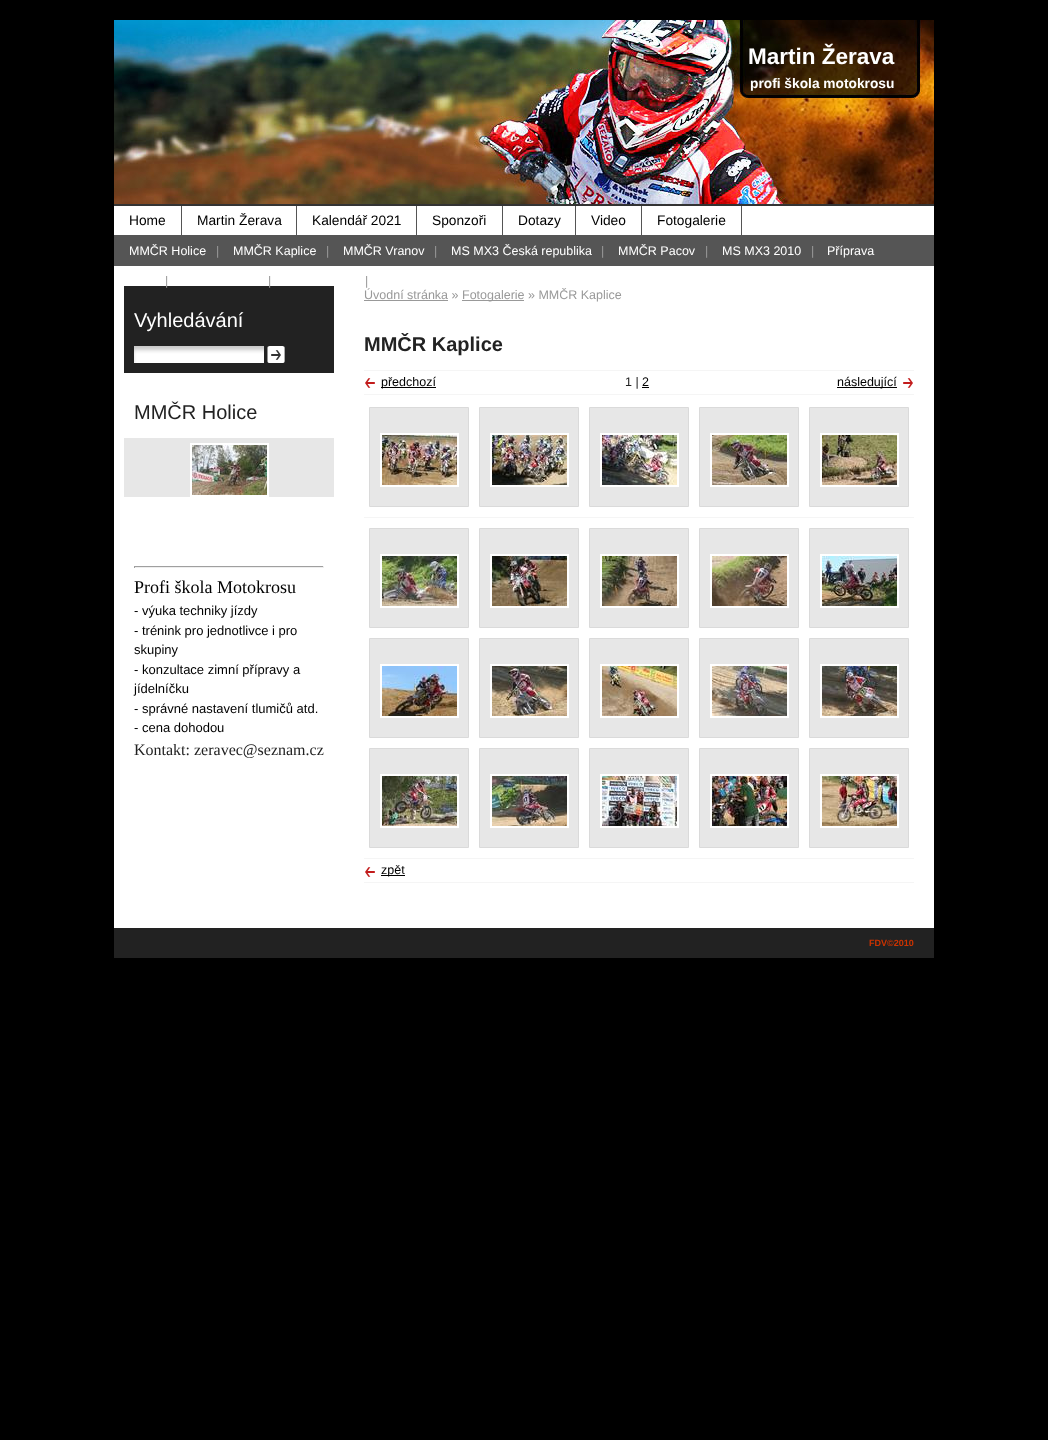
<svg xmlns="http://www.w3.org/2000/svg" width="1048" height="1440">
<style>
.a{font:bold 22.5px Liberation Sans;fill:#fff}
.b{font:bold 13.75px Liberation Sans;fill:#fff}
.c{font:13.75px Liberation Sans;fill:#000}
.d{font:12.5px Liberation Sans;fill:#fff}
.e{font:12.5px Liberation Sans;fill:#999}
.f{font:20px Liberation Sans;fill:#fff}
.g{font:20px Liberation Sans;fill:#222}
.h{font:18px Liberation Serif;fill:#000}
.i{font:13px Liberation Sans;fill:#000}
.j{font:16px Liberation Serif;fill:#222}
.k{font:bold 20px Liberation Sans;fill:#222}
.l{font:12.5px Liberation Sans;fill:#000}
.m{font:12.5px Liberation Sans;fill:#222}
.n{font:bold 9px Liberation Sans;fill:#c30}
</style>
<rect width="100%" height="100%" fill="#000"/>
<path fill="#fff" d="M114 206h820v722H114z"/>
<path fill="#333" d="M114 204h820v2H114z"/>
<image href="1.png" x="114" y="20" width="820" height="184"/>
<path fill="#555" d="M181 206h1v29H181z"/>
<path fill="#555" d="M296 206h1v29H296z"/>
<path fill="#555" d="M416 206h1v29H416z"/>
<path fill="#555" d="M502 206h1v29H502z"/>
<path fill="#555" d="M575 206h1v29H575z"/>
<path fill="#555" d="M641 206h1v29H641z"/>
<path fill="#555" d="M741 206h1v29H741z"/>
<path fill="#555" d="M114 235h820v31H114z"/>
<path fill="#222" d="M124 286h210v87H124z"/>
<image href="2.png" x="134" y="346" width="130" height="17"/>
<image href="3.png" x="267" y="346" width="18" height="17"/>
<path fill="#e7e7e7" d="M124 438h210v59H124z"/>
<path fill="none" stroke="#fff" stroke-width="2" d="M191 444h77v52H191z"/>
<image href="4.png" x="192" y="445" width="75" height="50"/>
<path fill="#9f9f9f" d="M134 566h190v1H134z"/>
<path fill="#eee" d="M323 566h1v2H323z"/>
<path fill="#eee" d="M134 567h190v1H134z"/>
<path fill="#9f9f9f" d="M134 566h1v2H134z"/>
<path fill="#999" d="M364 300h84v1H364z"/>
<path fill="#999" d="M462 300h62v1H462z"/>
<path fill="#f5f5f5" d="M364 370h550v1H364z"/>
<path fill="#f5f5f5" d="M364 394h550v1H364z"/>
<image href="5.png" x="365" y="378" width="10" height="10"/>
<path fill="#000" d="M381 387h55v1H381z"/>
<path fill="#000" d="M642 387h7v1H642z"/>
<image href="6.png" x="903" y="378" width="10" height="10"/>
<path fill="#000" d="M837 387h60v1H837z"/>
<path fill="#e7e7e7" stroke="#dadada" d="M369.5 407.5h99v99H369.5z"/>
<path fill="none" stroke="#fff" stroke-width="2" d="M381 434h77v52H381z"/>
<image href="7.png" x="382" y="435" width="75" height="50"/>
<path fill="#e7e7e7" stroke="#dadada" d="M479.5 407.5h99v99H479.5z"/>
<path fill="none" stroke="#fff" stroke-width="2" d="M491 434h77v52H491z"/>
<image href="8.png" x="492" y="435" width="75" height="50"/>
<path fill="#e7e7e7" stroke="#dadada" d="M589.5 407.5h99v99H589.5z"/>
<path fill="none" stroke="#fff" stroke-width="2" d="M601 434h77v52H601z"/>
<image href="9.png" x="602" y="435" width="75" height="50"/>
<path fill="#e7e7e7" stroke="#dadada" d="M699.5 407.5h99v99H699.5z"/>
<path fill="none" stroke="#fff" stroke-width="2" d="M711 434h77v52H711z"/>
<image href="10.png" x="712" y="435" width="75" height="50"/>
<path fill="#e7e7e7" stroke="#dadada" d="M809.5 407.5h99v99H809.5z"/>
<path fill="none" stroke="#fff" stroke-width="2" d="M821 434h77v52H821z"/>
<image href="11.png" x="822" y="435" width="75" height="50"/>
<path fill="#f5f5f5" d="M364 517h550v1H364z"/>
<path fill="#e7e7e7" stroke="#dadada" d="M369.5 528.5h99v99H369.5z"/>
<path fill="none" stroke="#fff" stroke-width="2" d="M381 555h77v52H381z"/>
<image href="12.png" x="382" y="556" width="75" height="50"/>
<path fill="#e7e7e7" stroke="#dadada" d="M479.5 528.5h99v99H479.5z"/>
<path fill="none" stroke="#fff" stroke-width="2" d="M491 555h77v52H491z"/>
<image href="13.png" x="492" y="556" width="75" height="50"/>
<path fill="#e7e7e7" stroke="#dadada" d="M589.5 528.5h99v99H589.5z"/>
<path fill="none" stroke="#fff" stroke-width="2" d="M601 555h77v52H601z"/>
<image href="14.png" x="602" y="556" width="75" height="50"/>
<path fill="#e7e7e7" stroke="#dadada" d="M699.5 528.5h99v99H699.5z"/>
<path fill="none" stroke="#fff" stroke-width="2" d="M711 555h77v52H711z"/>
<image href="15.png" x="712" y="556" width="75" height="50"/>
<path fill="#e7e7e7" stroke="#dadada" d="M809.5 528.5h99v99H809.5z"/>
<path fill="none" stroke="#fff" stroke-width="2" d="M821 555h77v52H821z"/>
<image href="16.png" x="822" y="556" width="75" height="50"/>
<path fill="#e7e7e7" stroke="#dadada" d="M369.5 638.5h99v99H369.5z"/>
<path fill="none" stroke="#fff" stroke-width="2" d="M381 665h77v52H381z"/>
<image href="17.png" x="382" y="666" width="75" height="50"/>
<path fill="#e7e7e7" stroke="#dadada" d="M479.5 638.5h99v99H479.5z"/>
<path fill="none" stroke="#fff" stroke-width="2" d="M491 665h77v52H491z"/>
<image href="18.png" x="492" y="666" width="75" height="50"/>
<path fill="#e7e7e7" stroke="#dadada" d="M589.5 638.5h99v99H589.5z"/>
<path fill="none" stroke="#fff" stroke-width="2" d="M601 665h77v52H601z"/>
<image href="19.png" x="602" y="666" width="75" height="50"/>
<path fill="#e7e7e7" stroke="#dadada" d="M699.5 638.5h99v99H699.5z"/>
<path fill="none" stroke="#fff" stroke-width="2" d="M711 665h77v52H711z"/>
<image href="20.png" x="712" y="666" width="75" height="50"/>
<path fill="#e7e7e7" stroke="#dadada" d="M809.5 638.5h99v99H809.5z"/>
<path fill="none" stroke="#fff" stroke-width="2" d="M821 665h77v52H821z"/>
<image href="21.png" x="822" y="666" width="75" height="50"/>
<path fill="#e7e7e7" stroke="#dadada" d="M369.5 748.5h99v99H369.5z"/>
<path fill="none" stroke="#fff" stroke-width="2" d="M381 775h77v52H381z"/>
<image href="22.png" x="382" y="776" width="75" height="50"/>
<path fill="#e7e7e7" stroke="#dadada" d="M479.5 748.5h99v99H479.5z"/>
<path fill="none" stroke="#fff" stroke-width="2" d="M491 775h77v52H491z"/>
<image href="23.png" x="492" y="776" width="75" height="50"/>
<path fill="#e7e7e7" stroke="#dadada" d="M589.5 748.5h99v99H589.5z"/>
<path fill="none" stroke="#fff" stroke-width="2" d="M601 775h77v52H601z"/>
<image href="24.png" x="602" y="776" width="75" height="50"/>
<path fill="#e7e7e7" stroke="#dadada" d="M699.5 748.5h99v99H699.5z"/>
<path fill="none" stroke="#fff" stroke-width="2" d="M711 775h77v52H711z"/>
<image href="25.png" x="712" y="776" width="75" height="50"/>
<path fill="#e7e7e7" stroke="#dadada" d="M809.5 748.5h99v99H809.5z"/>
<path fill="none" stroke="#fff" stroke-width="2" d="M821 775h77v52H821z"/>
<image href="26.png" x="822" y="776" width="75" height="50"/>
<path fill="#f5f5f5" d="M364 858h550v1H364z"/>
<path fill="#f5f5f5" d="M364 882h550v1H364z"/>
<image href="5.png" x="365" y="867" width="10" height="10"/>
<path fill="#000" d="M381 875h24v1H381z"/>
<path fill="#222" d="M114 928h820v30H114z"/>
<text class="a" x="748" y="64">Martin Žerava</text>
<text class="b" x="750" y="88">profi škola motokrosu</text>
<text class="c" x="129" y="225">Home</text>
<text class="c" x="197" y="225">Martin Žerava</text>
<text class="c" x="312" y="225">Kalendář 2021</text>
<text class="c" x="432" y="225">Sponzoři</text>
<text class="c" x="518" y="225">Dotazy</text>
<text class="c" x="591" y="225">Video</text>
<text class="c" x="657" y="225">Fotogalerie</text>
<text class="d" x="129" y="255">MMČR Holice</text>
<text class="e" x="216" y="255">|</text>
<text class="d" x="233" y="255">MMČR Kaplice</text>
<text class="e" x="326" y="255">|</text>
<text class="d" x="343" y="255">MMČR Vranov</text>
<text class="e" x="434" y="255">|</text>
<text class="d" x="451" y="255">MS MX3 Česká republika</text>
<text class="e" x="601" y="255">|</text>
<text class="d" x="618" y="255">MMČR Pacov</text>
<text class="e" x="705" y="255">|</text>
<text class="d" x="722" y="255">MS MX3 2010</text>
<text class="e" x="811" y="255">|</text>
<text class="d" x="827" y="255">Příprava</text>
<text class="e" x="165" y="285">|</text>
<text class="e" x="268" y="285">|</text>
<text class="e" x="365" y="285">|</text>
<text class="f" x="134" y="327">Vyhledávání</text>
<text class="g" x="134" y="419">MMČR Holice</text>
<text class="h" x="134" y="593">Profi škola Motokrosu</text>
<text class="i" x="134" y="615">- výuka techniky jízdy</text>
<text class="i" x="134" y="635">- trénink pro jednotlivce i pro</text>
<text class="i" x="134" y="654">skupiny</text>
<text class="i" x="134" y="674">- konzultace zimní přípravy a</text>
<text class="i" x="134" y="693">jídelníčku</text>
<text class="i" x="134" y="713">- správné nastavení tlumičů atd.</text>
<text class="i" x="134" y="732">- cena dohodou</text>
<text class="j" x="134" y="755">Kontakt: zeravec@seznam.cz</text>
<text class="e" x="364" y="299">Úvodní stránka »</text>
<text class="e" x="462" y="299">Fotogalerie » MMČR Kaplice</text>
<text class="k" x="364" y="351">MMČR Kaplice</text>
<text class="l" x="381" y="386">předchozí</text>
<text class="m" x="625" y="386">1 |</text>
<text class="l" x="642" y="386">2</text>
<text class="l" x="837" y="386">následující</text>
<text class="l" x="381" y="874">zpět</text>
<text class="n" x="869" y="946">FDV©2010</text>
</svg>
